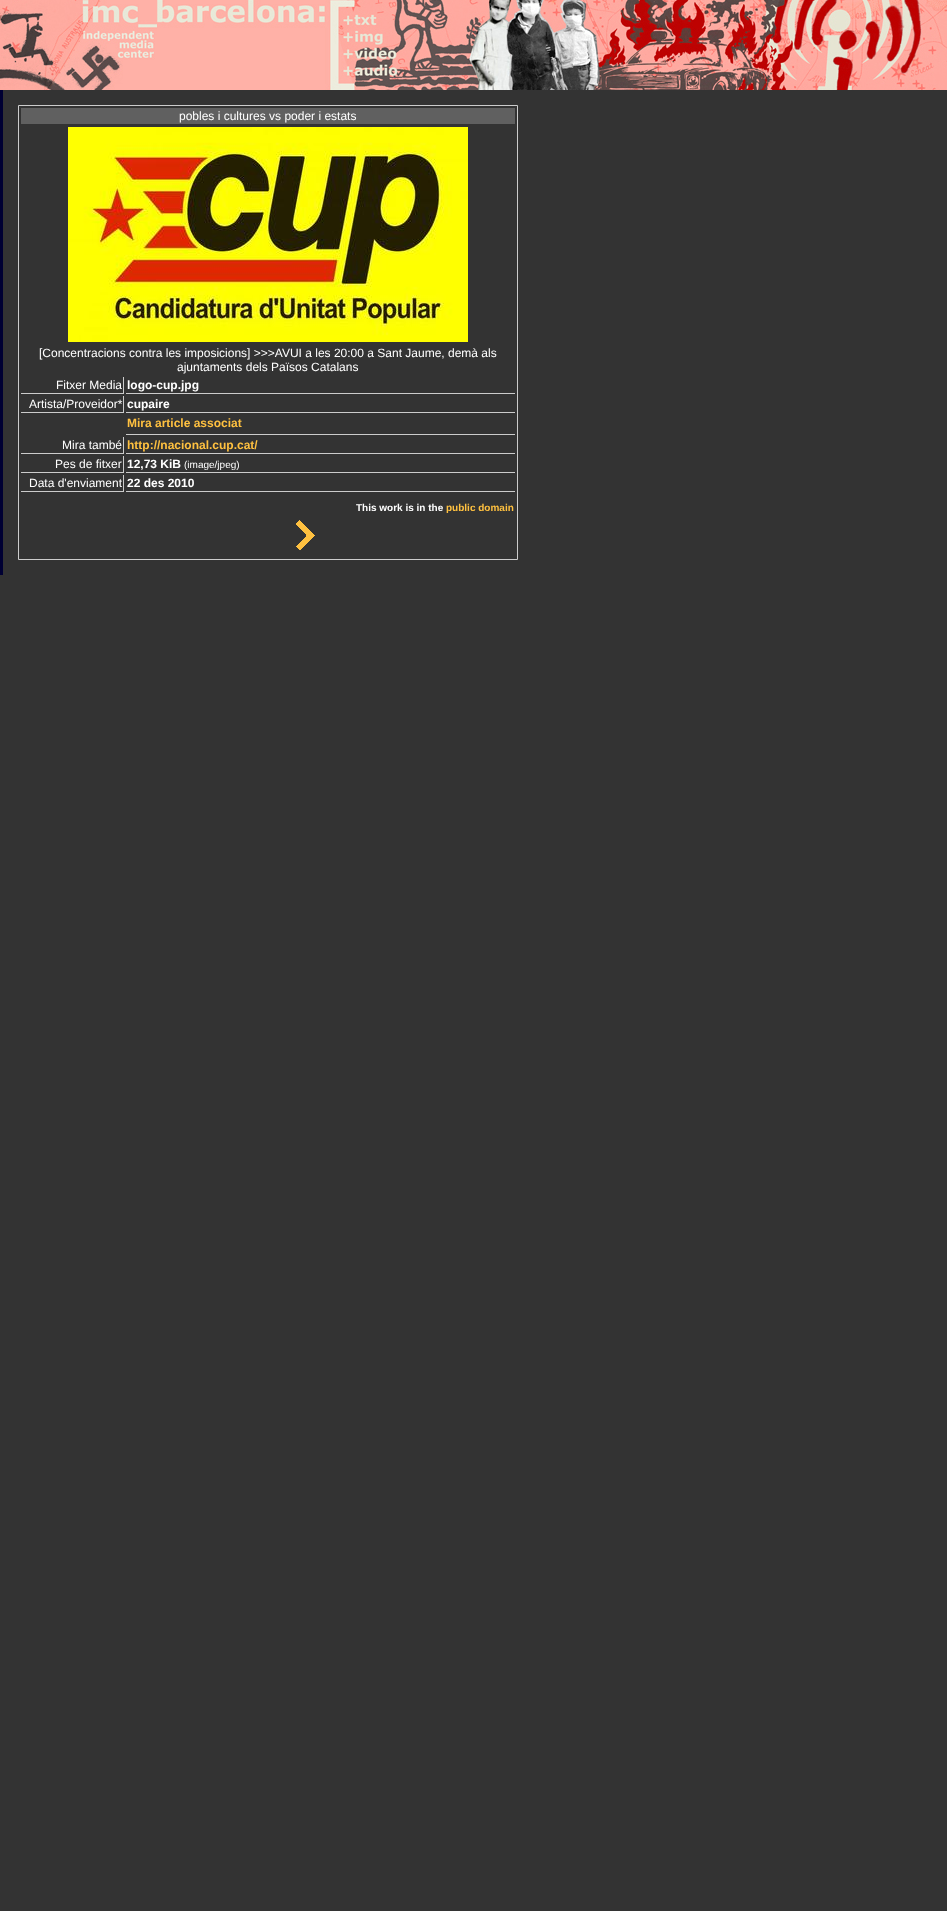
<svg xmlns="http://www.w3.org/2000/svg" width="947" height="1911">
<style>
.a{font:12px Liberation Sans;fill:#fff}
.b{font:bold 12px Liberation Sans;fill:#fff}
.c{font:bold 12px Liberation Sans;fill:#ffc140}
.d{font:10px Liberation Sans;fill:#fff}
.e{font:bold 10px Liberation Sans;fill:#fff}
.f{font:bold 10px Liberation Sans;fill:#ffc140}
</style>
<rect width="100%" height="100%" fill="#333"/>
<image href="1.png" x="0" y="0" width="157" height="90"/>
<image href="2.png" x="157" y="0" width="790" height="90"/>
<path fill="#003" d="M0 90h3v485H0z"/>
<path fill="none" stroke="#ccc" d="M18.5 105.5h499v454H18.5z"/>
<path fill="#606060" d="M21 108h494v16H21z"/>
<image href="3.png" x="68" y="127" width="400" height="215"/>
<path fill="#ccc" d="M123 377h1v17H123z"/>
<path fill="#ccc" d="M21 393h103v1H21z"/>
<path fill="#ccc" d="M126 393h389v1H126z"/>
<path fill="#ccc" d="M123 396h1v17H123z"/>
<path fill="#ccc" d="M21 412h103v1H21z"/>
<path fill="#ccc" d="M126 412h389v1H126z"/>
<path fill="#ccc" d="M126 434h389v1H126z"/>
<path fill="#ccc" d="M123 437h1v17H123z"/>
<path fill="#ccc" d="M21 453h103v1H21z"/>
<path fill="#ccc" d="M126 453h389v1H126z"/>
<path fill="#ccc" d="M123 456h1v17H123z"/>
<path fill="#ccc" d="M21 472h103v1H21z"/>
<path fill="#ccc" d="M126 472h389v1H126z"/>
<path fill="#ccc" d="M123 475h1v17H123z"/>
<path fill="#ccc" d="M21 491h103v1H21z"/>
<path fill="#ccc" d="M126 491h389v1H126z"/>
<image href="4.png" x="296" y="520" width="19" height="30"/>
<text class="a" x="179" y="120">pobles i cultures vs poder i estats</text>
<text class="a" x="39" y="357">[Concentracions contra les imposicions] &gt;&gt;&gt;AVUI a les 20:00 a Sant Jaume, demà als</text>
<text class="a" x="177" y="371">ajuntaments dels Països Catalans</text>
<text class="a" x="56" y="389">Fitxer Media</text>
<text class="b" x="127" y="389">logo-cup.jpg</text>
<text class="a" x="29" y="408">Artista/Proveidor*</text>
<text class="b" x="127" y="408">cupaire</text>
<text class="c" x="127" y="427">Mira article associat</text>
<text class="a" x="62" y="449">Mira també</text>
<text class="c" x="127" y="449">http://nacional.cup.cat/</text>
<text class="a" x="55" y="468">Pes de fitxer</text>
<text class="b" x="127" y="468">12,73 KiB</text>
<text class="d" x="184" y="468">(image/jpeg)</text>
<text class="a" x="29" y="487">Data d'enviament</text>
<text class="b" x="127" y="487">22 des 2010</text>
<text class="e" x="356" y="511">This work is in the</text>
<text class="f" x="446" y="511">public domain</text>
</svg>
